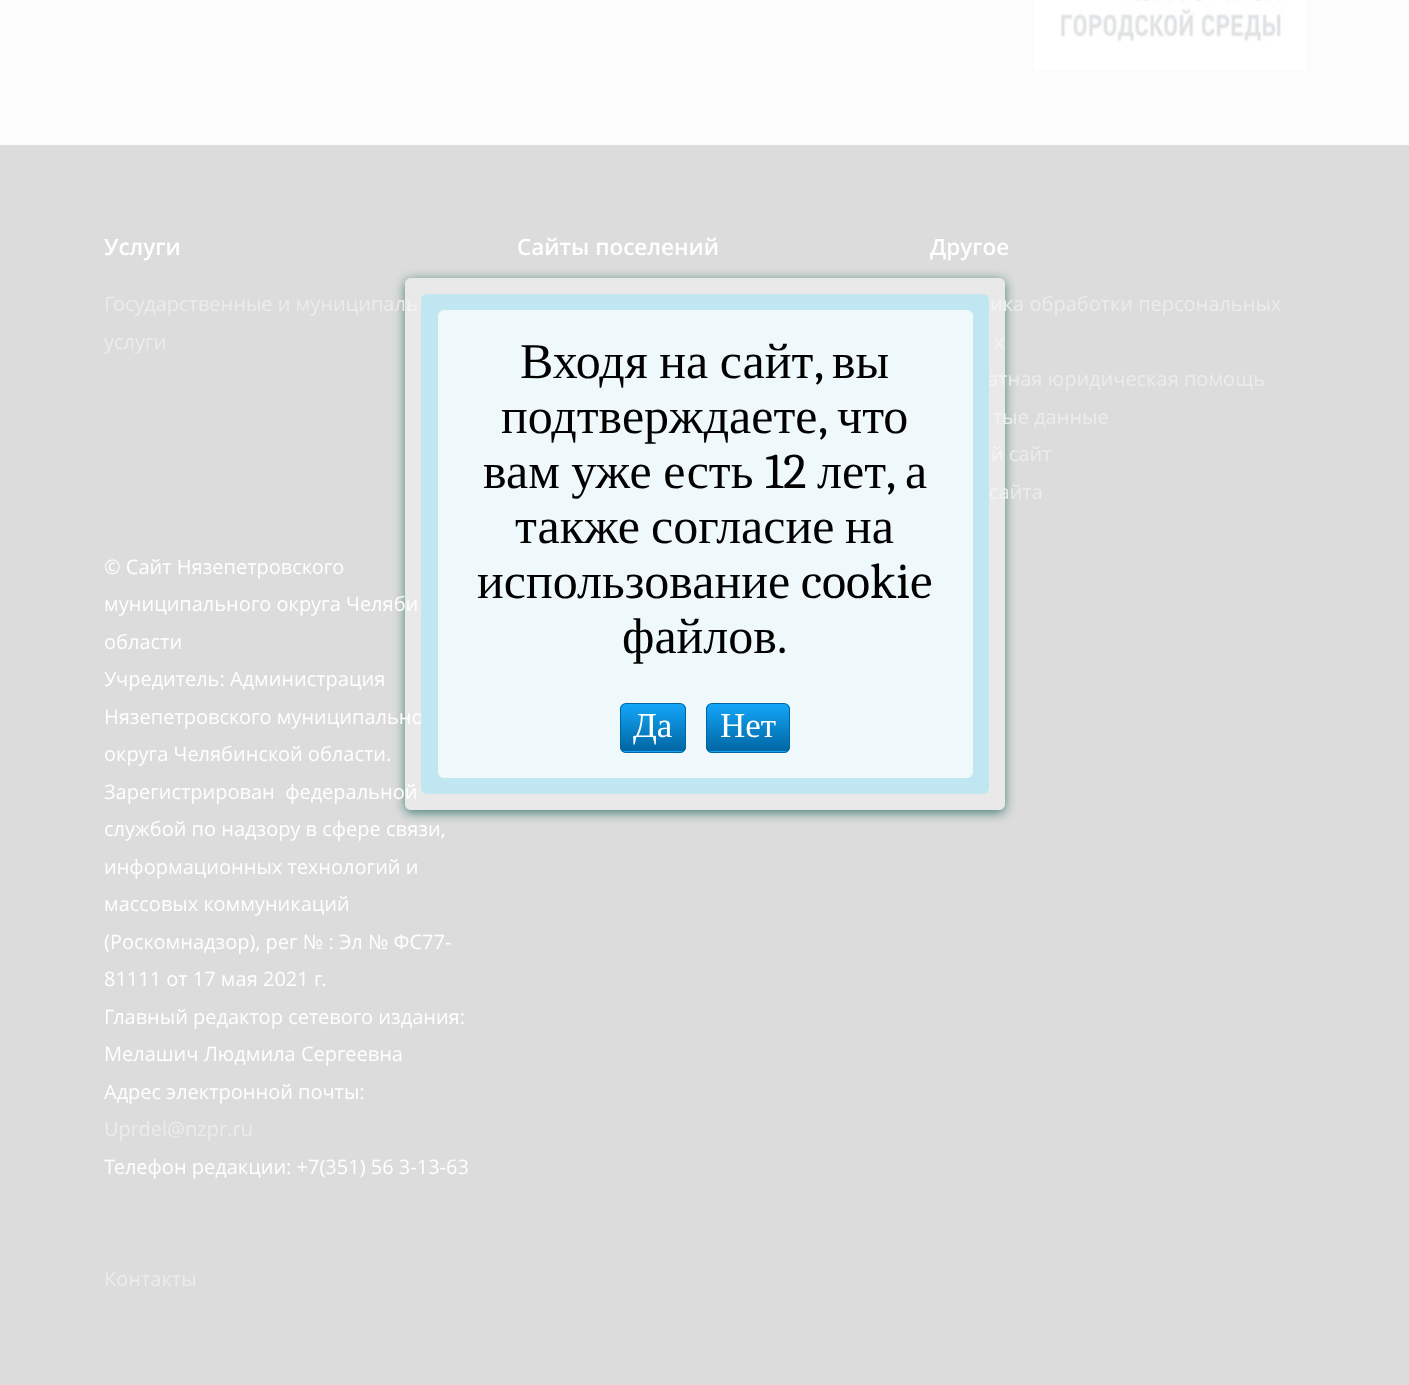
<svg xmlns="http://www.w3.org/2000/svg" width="1409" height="1385">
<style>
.a{font:600 22.5px Open Sans;fill:#fff}
.b{font:20px Open Sans;fill:#ececec}
.c{font:20px Open Sans;fill:#fff}
.d{font:50px Liberation Serif;fill:#010101}
.e{font:50px Caladea;fill:#010101}
.f{font:35px Liberation Serif;fill:#fff}
</style>
<defs>
<clipPath id="clip1"><path d="M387 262h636v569h-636zm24 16h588c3.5 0 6 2.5 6 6v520c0 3.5-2.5 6-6 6h-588c-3.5 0-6-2.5-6-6v-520c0-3.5 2.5-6 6-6z" clip-rule="evenodd"/></clipPath>
<clipPath id="clip2"><rect x="620" y="703" width="66" height="50" rx="6"/></clipPath>
<linearGradient id="g1" gradientUnits="userSpaceOnUse" x1="653" y1="704" x2="653" y2="751"><stop offset="0" stop-color="#14a6f9"/><stop offset="1" stop-color="#0066a3"/></linearGradient>
<linearGradient id="g2" gradientUnits="userSpaceOnUse" x1="653" y1="751" x2="653" y2="799"><stop offset="0" stop-color="#14a6f9"/><stop offset="1" stop-color="#0066a3"/></linearGradient>
<clipPath id="clip3"><rect x="706" y="703" width="84" height="50" rx="6"/></clipPath>
<linearGradient id="g3" gradientUnits="userSpaceOnUse" x1="748" y1="704" x2="748" y2="751"><stop offset="0" stop-color="#14a6f9"/><stop offset="1" stop-color="#0066a3"/></linearGradient>
<linearGradient id="g4" gradientUnits="userSpaceOnUse" x1="748" y1="751" x2="748" y2="799"><stop offset="0" stop-color="#14a6f9"/><stop offset="1" stop-color="#0066a3"/></linearGradient>
</defs>
<rect width="100%" height="100%" fill="#fcfcfc"/>
<image href="1.png" x="1033" y="0" width="274" height="70"/>
<path fill="#dcdcdc" d="M0 145h1409v1240H0z"/>
<g clip-path="url(#clip1)">
<rect fill="#0c5c4cb3" filter="blur(5.5px)" x="405" y="280" width="600" height="533" rx="6"/>
</g>
<text class="a" x="104" y="255">Услуги</text>
<text class="b" x="104" y="311">Государственные и муниципаль</text>
<text class="b" x="104" y="349">услуги</text>
<text class="a" x="517" y="255">Сайты поселений</text>
<text class="a" x="930" y="255">Другое</text>
<text class="b" x="990" y="311">ика обработки персональных</text>
<text class="b" x="994" y="349">х</text>
<text class="b" x="987" y="386">атная юридическая помощь</text>
<text class="b" x="993" y="424">тые данные</text>
<text class="b" x="991" y="461">й сайт</text>
<text class="b" x="989" y="499">сайта</text>
<text class="c" x="104" y="574">© Сайт Нязепетровского</text>
<text class="c" x="104" y="611">муниципального округа Челяби</text>
<text class="c" x="104" y="649">области</text>
<text class="c" x="104" y="686">Учредитель: Администрация</text>
<text class="c" x="104" y="724">Нязепетровского муниципально</text>
<text class="c" x="104" y="761">округа Челябинской области.</text>
<text class="c" xml:space="preserve" x="104" y="799">Зарегистрирован  федеральной</text>
<text class="c" x="104" y="836">службой по надзору в сфере связи,</text>
<text class="c" x="104" y="874">информационных технологий и</text>
<text class="c" x="104" y="911">массовых коммуникаций</text>
<text class="c" x="104" y="949">(Роскомнадзор), рег № : Эл № ФС77-</text>
<text class="c" x="104" y="986">81111 от 17 мая 2021 г.</text>
<text class="c" x="104" y="1024">Главный редактор сетевого издания:</text>
<text class="c" x="104" y="1061">Мелашич Людмила Сергеевна</text>
<text class="c" x="104" y="1099">Адрес электронной почты:</text>
<text class="b" x="104" y="1136">Uprdel@nzpr.ru</text>
<text class="c" x="104" y="1174">Телефон редакции: +7(351) 56 3-13-63</text>
<text class="b" x="104" y="1286">Контакты</text>
<rect fill="#ffffff63" x="405" y="278" width="600" height="532" rx="6"/>
<rect fill="#c0e7f1" x="421" y="294" width="568" height="500" rx="6"/>
<rect fill="#eff9fb" x="438" y="310" width="535" height="468" rx="6"/>
<text class="d" x="520" y="378" word-spacing="-1">Входя на сайт</text>
<text class="e" x="814" y="378">,</text>
<text class="d" x="832" y="378">вы</text>
<text class="d" x="501" y="433">подтверждаете</text>
<text class="e" x="818" y="433">,</text>
<text class="d" x="837" y="433">что</text>
<text class="d" x="483" y="488" word-spacing="-1">вам уже есть</text>
<text class="e" x="765" y="488">12</text>
<text class="d" x="817" y="488">лет</text>
<text class="e" x="886" y="488">,</text>
<text class="d" x="905" y="488">а</text>
<text class="d" x="515" y="543">также</text>
<text class="d" x="651" y="543" word-spacing="-2">согласие на</text>
<text class="d" x="477" y="598">использование</text>
<text class="e" x="801" y="598">cookie</text>
<text class="d" x="622" y="653">файлов</text>
<text class="e" x="777" y="653">.</text>
<g clip-path="url(#clip2)">
<path fill="url(#g1)" d="M620 704h66v47H620z"/>
<path fill="url(#g2)" d="M620 751h66v2H620z"/>
</g>
<rect fill="none" stroke="#0066a3" x="620.5" y="703.5" width="65" height="49" rx="5.5"/>
<text class="f" x="633" y="737">Да</text>
<g clip-path="url(#clip3)">
<path fill="url(#g3)" d="M706 704h84v47H706z"/>
<path fill="url(#g4)" d="M706 751h84v2H706z"/>
</g>
<rect fill="none" stroke="#0066a3" x="706.5" y="703.5" width="83" height="49" rx="5.5"/>
<text class="f" x="720" y="737">Нет</text>
</svg>
